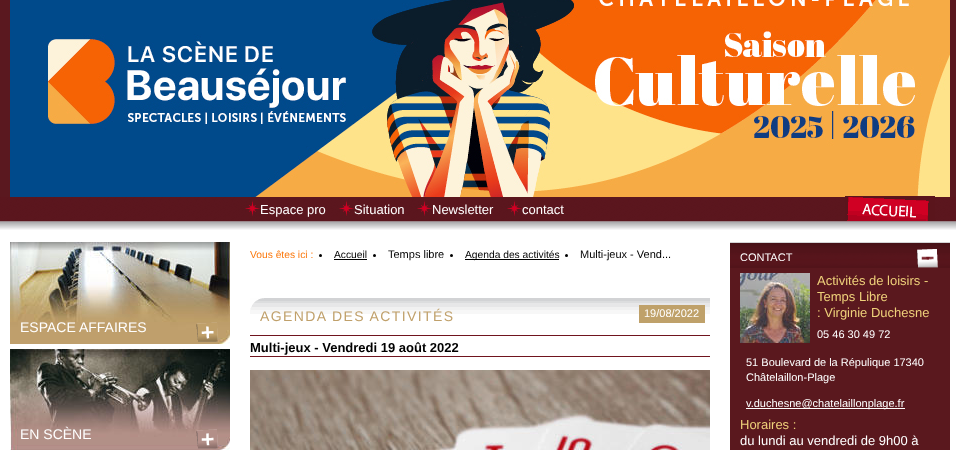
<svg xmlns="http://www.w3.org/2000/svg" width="956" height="450">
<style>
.a{font:13px Liberation Sans;fill:#fff}
.b{font:14px Liberation Sans;fill:#fff}
.c{font:10.25px Liberation Sans;fill:#fb780d}
.d{font:10.25px Liberation Sans;fill:#000}
.e{font:11px Liberation Sans;fill:#000}
.f{font:14px Liberation Sans;letter-spacing:1.4px;fill:#c0a06a}
.g{font:11px Liberation Sans;fill:#fff}
.h{font:bold 13px Liberation Sans;fill:#000}
.i{font:13px Liberation Sans;fill:#eed07a}
</style>
<rect width="100%" height="100%" fill="#5a181f"/>
<image href="1.png" x="10" y="0" width="940" height="197"/>
<path fill="#fff" d="M0 230h956v220H0z"/>
<image href="2.png" x="0" y="197" width="956" height="33"/>
<image href="3.png" x="245" y="200" width="15" height="16"/>
<image href="3.png" x="339" y="200" width="15" height="16"/>
<image href="3.png" x="417" y="200" width="15" height="16"/>
<image href="3.png" x="507" y="200" width="15" height="16"/>
<image href="4.png" x="845" y="196" width="90" height="25"/>
<image href="5.png" x="10" y="242" width="220" height="102"/>
<image href="6.png" x="196" y="322" width="22" height="20"/>
<image href="7.png" x="10" y="349" width="220" height="101"/>
<image href="8.png" x="196" y="429" width="22" height="20"/>
<circle fill="#000" cx="320.5" cy="255.5" r="1.5"/>
<path fill="#000" d="M334 259h33v1H334z"/>
<circle fill="#000" cx="374.5" cy="255.5" r="1.5"/>
<circle fill="#000" cx="451.5" cy="255.5" r="1.5"/>
<path fill="#000" d="M465 259h94v1H465z"/>
<circle fill="#000" cx="566.5" cy="255.5" r="1.5"/>
<image href="9.png" x="250" y="298" width="460" height="16"/>
<path fill="#bfa16a" d="M639 305h66v18H639z"/>
<path fill="#70141e" d="M250 335h460v1H250z"/>
<path fill="#70141e" d="M250 356h460v1H250z"/>
<image href="10.png" x="250" y="370" width="460" height="80"/>
<image href="11.png" x="730" y="242" width="220" height="26"/>
<image href="12.png" x="916" y="249" width="22" height="19"/>
<path fill="#5a181e" d="M730 268h220v182H730z"/>
<image href="13.png" x="740" y="273" width="70" height="70"/>
<path fill="#fff" d="M746 408h159v1H746z"/>
<text class="a" x="260" y="214">Espace pro</text>
<text class="a" x="354" y="214">Situation</text>
<text class="a" x="432" y="214">Newsletter</text>
<text class="a" x="522" y="214">contact</text>
<text class="b" x="20" y="332">ESPACE AFFAIRES</text>
<text class="b" x="20" y="439">EN SCÈNE</text>
<text class="c" x="250" y="258">Vous êtes ici :</text>
<text class="d" x="334" y="258">Accueil</text>
<text class="e" x="388" y="258">Temps libre</text>
<text class="d" x="465" y="258">Agenda des activités</text>
<text class="e" x="580" y="258">Multi-jeux - Vend...</text>
<text class="f" x="260" y="321">AGENDA DES ACTIVITÉS</text>
<text class="g" x="644" y="317">19/08/2022</text>
<text class="h" x="250" y="352">Multi-jeux - Vendredi 19 août 2022</text>
<text class="g" x="740" y="261">CONTACT</text>
<text class="i" x="817" y="285">Activités de loisirs -</text>
<text class="i" x="817" y="301">Temps Libre</text>
<text class="i" x="817" y="317">: Virginie Duchesne</text>
<text class="g" x="817" y="338">05 46 30 49 72</text>
<text class="g" x="746" y="366">51 Boulevard de la Répulique 17340</text>
<text class="g" x="746" y="381">Châtelaillon-Plage</text>
<text class="g" x="746" y="407">v.duchesne@chatelaillonplage.fr</text>
<text class="i" x="740" y="429">Horaires :</text>
<text class="a" x="740" y="445">du lundi au vendredi de 9h00 à</text>
</svg>
